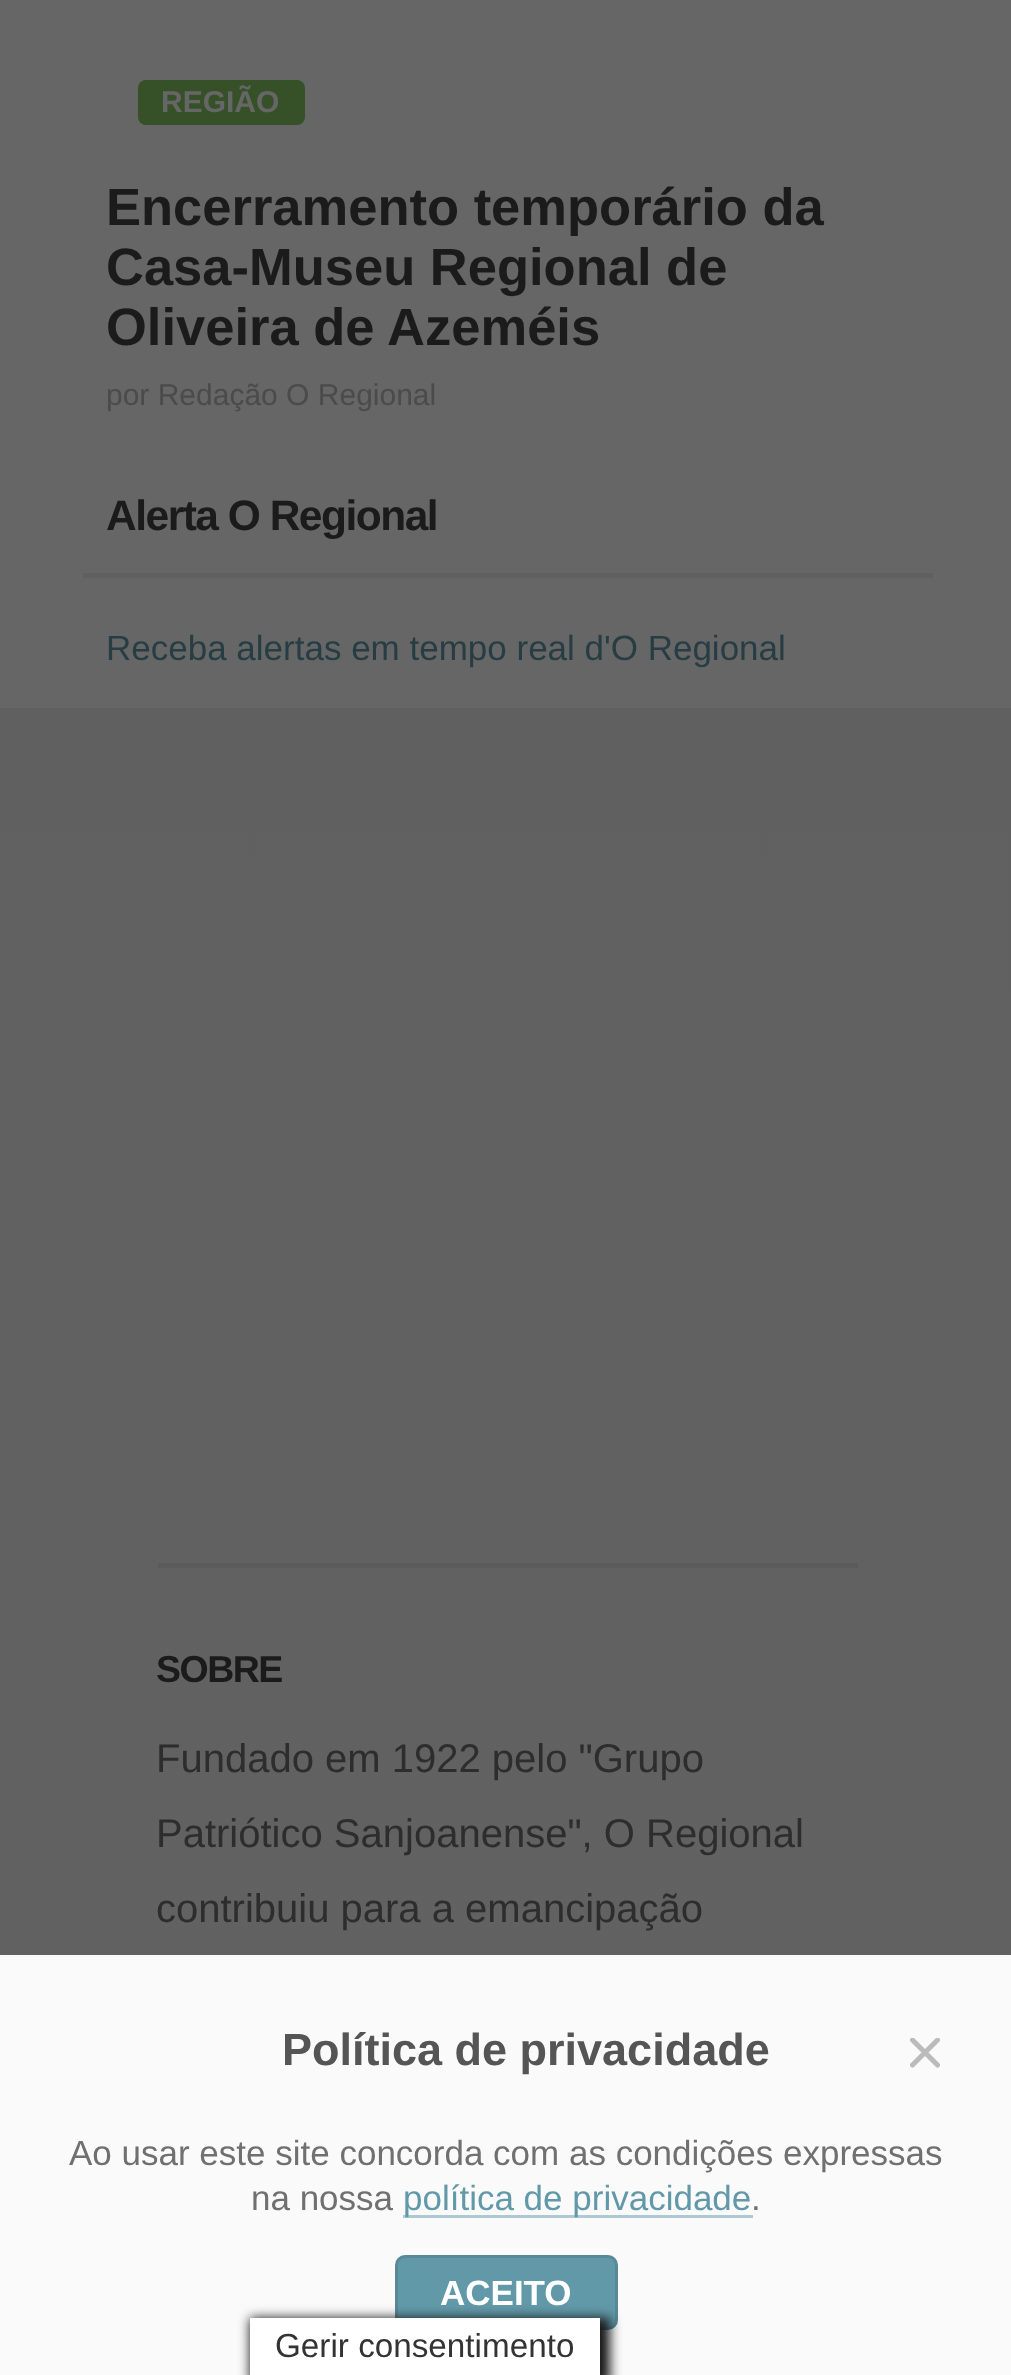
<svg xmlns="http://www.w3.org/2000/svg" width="1011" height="2375">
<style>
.a{font:bold 30px Liberation Sans;fill:#666}
.b{font:bold 52.5px Liberation Sans;fill:#1b1b1b}
.c{font:30px Liberation Sans;fill:#4b4b4b}
.d{font:bold 42.5px Liberation Sans;letter-spacing:-1.5px;fill:#1b1b1b}
.e{font:35px Liberation Sans;fill:#273d44}
.f{font:bold 37.5px Liberation Sans;letter-spacing:-1.5px;fill:#1b1b1b}
.g{font:40px Liberation Sans;fill:#2d2d2d}
.h{font:bold 45px Liberation Sans;fill:#555}
.i{font:35px Liberation Sans;fill:#707070}
.j{font:35px Liberation Sans;fill:#6299a9}
.k{font:bold 35px Liberation Sans;fill:#fff}
.l{font:33.25px Liberation Sans;fill:#333}
</style>
<defs>
<linearGradient id="g1" gradientUnits="userSpaceOnUse" x1="506" y1="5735" x2="506" y2="708"><stop offset="0" stop-color="#666"/><stop offset="1" stop-color="#606060"/></linearGradient>
<linearGradient id="g2" gradientUnits="userSpaceOnUse" x1="506" y1="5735" x2="506" y2="708"><stop offset="0" stop-color="#fafafa"/><stop offset="1" stop-color="#fafafa"/></linearGradient>
<clipPath id="clip1"><path d="M910 2038h30v30H910z"/></clipPath>
</defs>
<rect width="100%" height="100%" fill="#666"/>
<rect fill="#365128" x="138" y="80" width="167" height="45" rx="8"/>
<path fill="#606060" d="M83 573h850v5H83z"/>
<path fill="url(#g1)" d="M0 708h1011v1247H0z"/>
<path fill="url(#g2)" d="M0 1955h1011v420H0z"/>
<path fill="#5b5b5b" d="M158 1563h700v5H158z"/>
<g clip-path="url(#clip1)">
<path fill="none" stroke="#bbb" stroke-width="5" stroke-linecap="round" d="M912.5 2040l25 25m0-25l-25 25"/>
</g>
<path fill="#aec9d1" d="M403 2215h350v3H403z"/>
<rect fill="#6299a9" x="395" y="2255" width="223" height="75" rx="10"/>
<rect fill="none" stroke="#0000001a" stroke-width="3" x="396.5" y="2256.5" width="220" height="72" rx="8.5"/>
<path fill="#161616" filter="blur(6px)" d="M250 2318h360v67H250z"/>
<path fill="#fff" d="M250 2318h350v57H250z"/>
<text class="a" x="161" y="112">REGIÃO</text>
<text class="b" x="106" y="225">Encerramento temporário da</text>
<text class="b" x="106" y="285">Casa-Museu Regional de</text>
<text class="b" x="106" y="345">Oliveira de Azeméis</text>
<text class="c" x="106" y="405">por Redação O Regional</text>
<text class="d" x="106" y="530">Alerta O Regional</text>
<text class="e" x="106" y="660">Receba alertas em tempo real d'O Regional</text>
<text class="f" x="156" y="1682">SOBRE</text>
<text class="g" x="156" y="1772">Fundado em 1922 pelo "Grupo</text>
<text class="g" x="156" y="1847">Patriótico Sanjoanense", O Regional</text>
<text class="g" x="156" y="1922">contribuiu para a emancipação</text>
<text class="h" x="282" y="2065">Política de privacidade</text>
<text class="i" x="69" y="2165">Ao usar este site concorda com as condições expressas</text>
<text class="i" x="251" y="2210">na nossa</text>
<text class="j" x="403" y="2210">política de privacidade</text>
<text class="i" x="751" y="2210">.</text>
<text class="k" x="440" y="2305">ACEITO</text>
<text class="l" x="275" y="2357">Gerir consentimento</text>
</svg>
